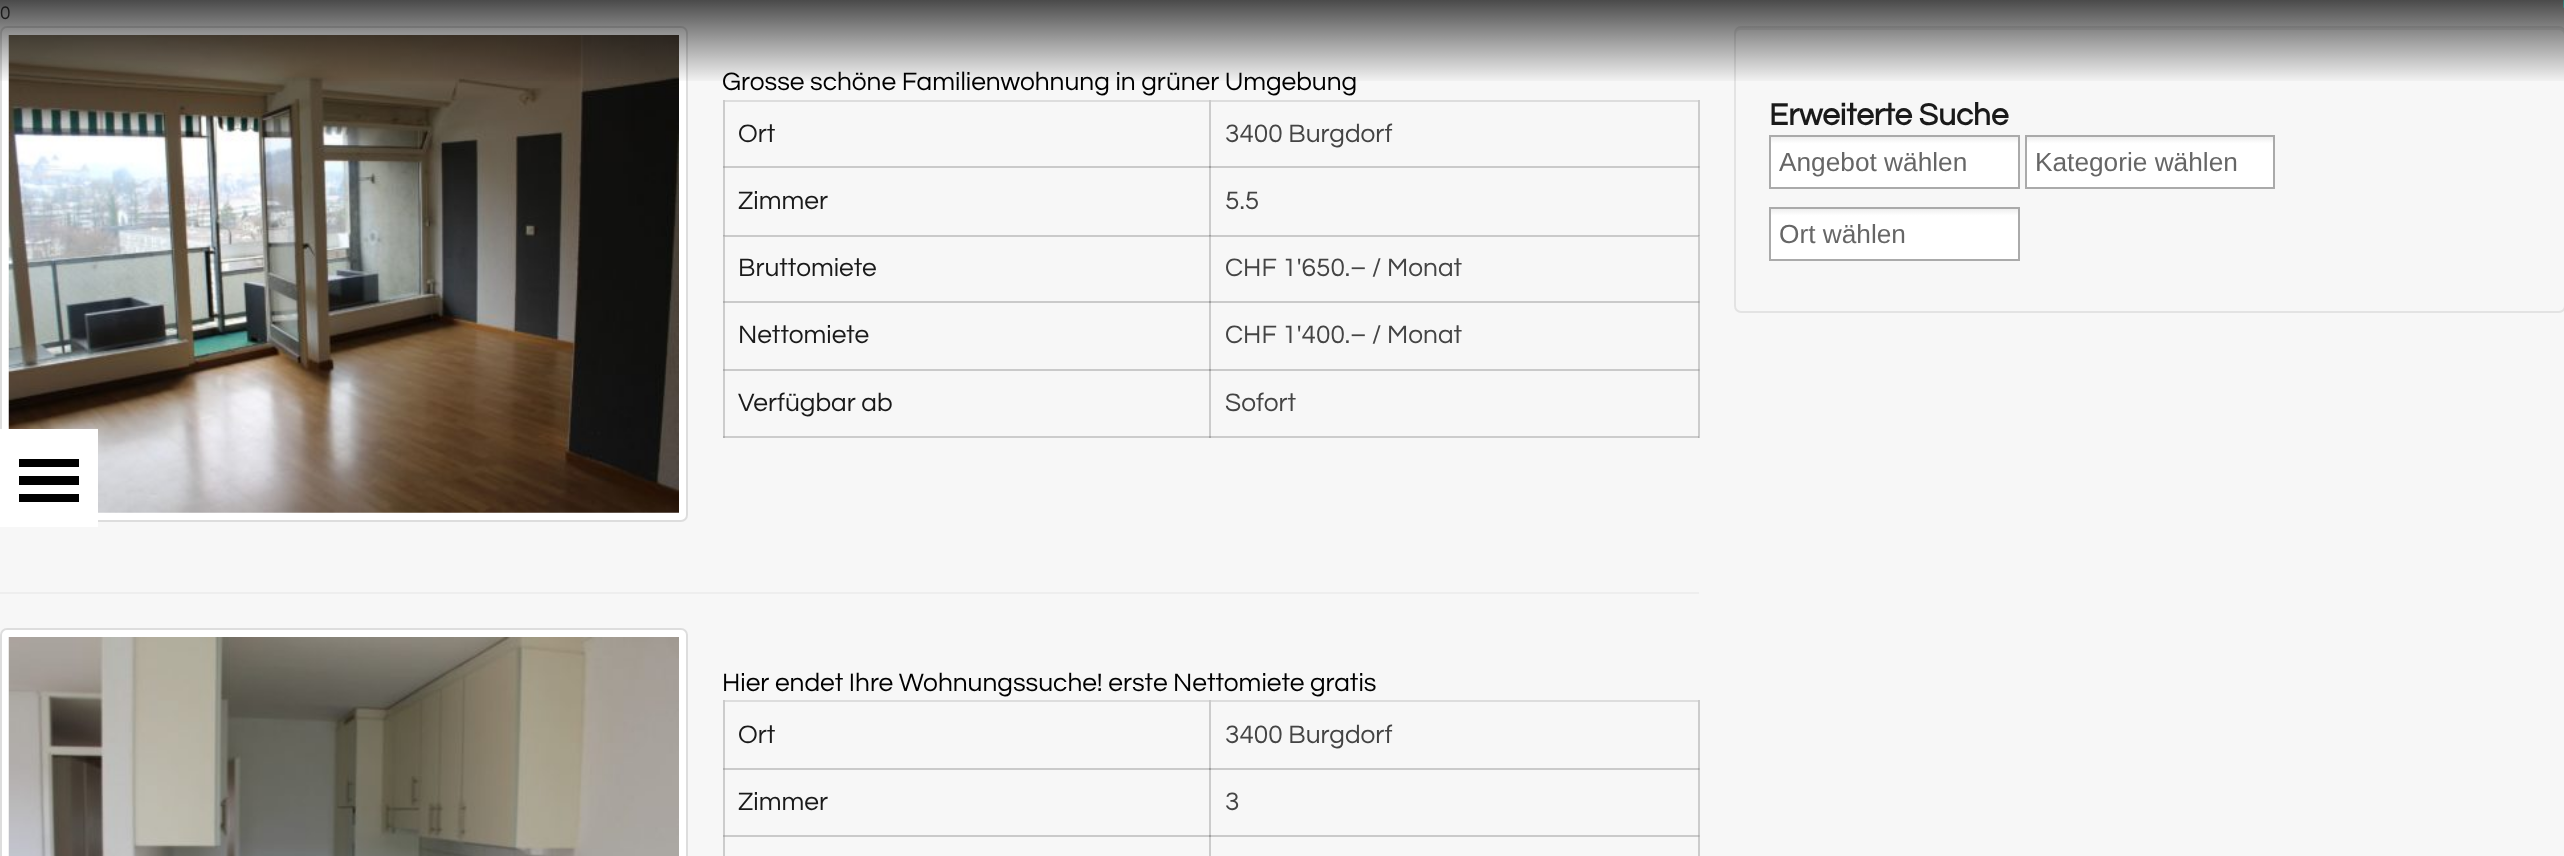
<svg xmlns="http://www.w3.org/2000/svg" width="2564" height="856">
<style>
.a{font:19px Questrial;fill:#444}
.b{font:26.25px Questrial;fill:#000}
.c{font:26.25px Questrial;fill:#1a1a1a}
.d{font:26.25px Questrial;fill:#444}
.e{font:bold 31.5px Questrial;fill:#1a1a1a}
.f{font:26.25px Liberation Sans;fill:#666}
</style>
<defs>
<linearGradient id="g1" gradientUnits="userSpaceOnUse" x1="1894" y1="136" x2="1894" y2="187"><stop offset="0.01" stop-color="#eee"/><stop offset="0.15" stop-color="#fff"/></linearGradient>
<linearGradient id="g2" gradientUnits="userSpaceOnUse" x1="2150" y1="136" x2="2150" y2="187"><stop offset="0.01" stop-color="#eee"/><stop offset="0.15" stop-color="#fff"/></linearGradient>
<linearGradient id="g3" gradientUnits="userSpaceOnUse" x1="1894" y1="208" x2="1894" y2="259"><stop offset="0.01" stop-color="#eee"/><stop offset="0.15" stop-color="#fff"/></linearGradient>
<linearGradient id="g4" gradientUnits="userSpaceOnUse" x1="1283" y1="0" x2="1283" y2="84"><stop offset="0" stop-color="#000" stop-opacity="0.7"/><stop offset="1" stop-color="#000" stop-opacity="0"/></linearGradient>
</defs>
<rect width="100%" height="100%" fill="#f7f7f7"/>
<path fill="#ccc" d="M1209 700h2v137H1209z"/>
<path fill="#ccc" d="M723 700h2v137H723z"/>
<path fill="#ccc" d="M1698 700h2v137H1698z"/>
<path fill="#bdbdbd" d="M1698 768h2v2H1698z"/>
<path fill="#ccc" d="M1209 100h2v338H1209z"/>
<path fill="#ccc" d="M723 100h2v338H723z"/>
<path fill="#ccc" d="M723 436h976v2H723z"/>
<path fill="#a7a7a7" d="M1209 436h2v2H1209z"/>
<path fill="#b1b1b1" d="M723 436h2v2H723z"/>
<path fill="#ccc" d="M1698 100h2v338H1698z"/>
<path fill="#bdbdbd" d="M1698 166h2v2H1698z"/>
<path fill="#bdbdbd" d="M1698 235h2v1H1698z"/>
<path fill="#bdbdbd" d="M1698 301h2v2H1698z"/>
<path fill="#bdbdbd" d="M1698 369h2v2H1698z"/>
<path fill="#b1b1b1" d="M1698 436h1v2H1698z"/>
<rect fill="#fff" stroke="#ddd" stroke-width="2" x="1" y="27" width="686" height="494" rx="6"/>
<image href="1.png" x="8" y="35" width="671" height="478"/>
<path fill="#ddd" d="M723 100h976v2H723z"/>
<path fill="#cacaca" d="M723 100h2v2H723z"/>
<path fill="#cacaca" d="M1209 100h2v2H1209z"/>
<path fill="#cacaca" d="M1698 100h1v2H1698z"/>
<path fill="#cacaca" d="M723 166h976v2H723z"/>
<path fill="#afafaf" d="M723 166h2v2H723z"/>
<path fill="#9e9e9e" d="M1209 166h2v2H1209z"/>
<path fill="#afafaf" d="M1698 166h1v2H1698z"/>
<path fill="#cacaca" d="M723 235h976v2H723z"/>
<path fill="#bbb" d="M723 236h2v1H723z"/>
<path fill="#afafaf" d="M723 235h2v1H723z"/>
<path fill="#afafaf" d="M1209 236h2v1H1209z"/>
<path fill="#9e9e9e" d="M1209 235h2v1H1209z"/>
<path fill="#bbb" d="M1698 235h1v2H1698z"/>
<path fill="#afafaf" d="M1698 235h1v1H1698z"/>
<path fill="#cacaca" d="M723 301h976v2H723z"/>
<path fill="#afafaf" d="M723 301h2v2H723z"/>
<path fill="#9e9e9e" d="M1209 301h2v2H1209z"/>
<path fill="#afafaf" d="M1698 301h1v2H1698z"/>
<path fill="#cacaca" d="M723 369h976v2H723z"/>
<path fill="#afafaf" d="M723 369h2v2H723z"/>
<path fill="#9e9e9e" d="M1209 369h2v2H1209z"/>
<path fill="#afafaf" d="M1698 369h1v2H1698z"/>
<path fill="#eee" d="M0 592h1699v2H0z"/>
<rect fill="#fff" stroke="#ddd" stroke-width="2" x="1" y="629" width="686" height="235" rx="6"/>
<image href="2.png" x="8" y="637" width="671" height="219"/>
<path fill="#ddd" d="M723 700h976v2H723z"/>
<path fill="#cacaca" d="M723 700h2v2H723z"/>
<path fill="#cacaca" d="M1209 700h2v2H1209z"/>
<path fill="#cacaca" d="M1698 700h1v2H1698z"/>
<path fill="#cacaca" d="M723 768h976v2H723z"/>
<path fill="#afafaf" d="M723 768h2v2H723z"/>
<path fill="#9e9e9e" d="M1209 768h2v2H1209z"/>
<path fill="#afafaf" d="M1698 768h1v2H1698z"/>
<path fill="#cacaca" d="M723 835h976v2H723z"/>
<path fill="#ccc" d="M1698 835h2v21H1698z"/>
<path fill="#bdbdbd" d="M1698 835h2v2H1698z"/>
<path fill="#b1b1b1" d="M1698 835h1v2H1698z"/>
<path fill="#ccc" d="M1209 835h2v21H1209z"/>
<path fill="#9f9f9f" d="M1209 835h2v2H1209z"/>
<path fill="#ccc" d="M723 835h2v21H723z"/>
<path fill="#b1b1b1" d="M723 835h2v2H723z"/>
<path fill="#e9e9e9" d="M1741 30h817c3 0 6 2 6 5v-2c0-3-2-5-5-5h-818c-3 0-5 2-5 5v2c0-3 2-5 5-5z"/>
<rect fill="none" stroke="#e3e3e3" stroke-width="2" x="1735" y="27" width="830" height="285" rx="6"/>
<path fill="url(#g1)" d="M1771 137h247v50H1771z"/>
<path fill="none" stroke="#aaa" stroke-width="2" d="M1770 136h249v52H1770z"/>
<path fill="url(#g2)" d="M2027 137h246v50H2027z"/>
<path fill="none" stroke="#aaa" stroke-width="2" d="M2026 136h248v52H2026z"/>
<path fill="url(#g3)" d="M1771 209h247v50H1771z"/>
<path fill="none" stroke="#aaa" stroke-width="2" d="M1770 208h249v52H1770z"/>
<path fill="#fff" d="M0 429h98v98H0z"/>
<path fill="#000" d="M19 476h60v9H19z"/>
<path fill="#000" d="M19 459h60v8H19z"/>
<path fill="#000" d="M19 494h60v8H19z"/>
<text class="a" x="0" y="19">0</text>
<text class="b" x="722" y="90">Grosse schöne Familienwohnung in grüner Umgebung</text>
<path fill="url(#g4)" d="M0 0h2564v81H0z"/>
<path fill="none" stroke="#1ea69a" stroke-width="7.7" d="M2563.5 4h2"/>
<text class="c" x="738" y="142">Ort</text>
<text class="d" x="1225" y="142">3400 Burgdorf</text>
<text class="c" x="738" y="209">Zimmer</text>
<text class="d" x="1225" y="209">5.5</text>
<text class="c" x="738" y="276">Bruttomiete</text>
<text class="d" x="1225" y="276">CHF 1'650.– / Monat</text>
<text class="c" x="738" y="343">Nettomiete</text>
<text class="d" x="1225" y="343">CHF 1'400.– / Monat</text>
<text class="c" x="738" y="411">Verfügbar ab</text>
<text class="d" x="1225" y="411">Sofort</text>
<text class="b" x="722" y="691">Hier endet Ihre Wohnungssuche! erste Nettomiete gratis</text>
<text class="c" x="738" y="743">Ort</text>
<text class="d" x="1225" y="743">3400 Burgdorf</text>
<text class="c" x="738" y="810">Zimmer</text>
<text class="d" x="1225" y="810">3</text>
<text class="e" x="1769" y="125">Erweiterte Suche</text>
<text class="f" x="1779" y="171">Angebot wählen</text>
<text class="f" x="2035" y="171">Kategorie wählen</text>
<text class="f" x="1779" y="243">Ort wählen</text>
</svg>
